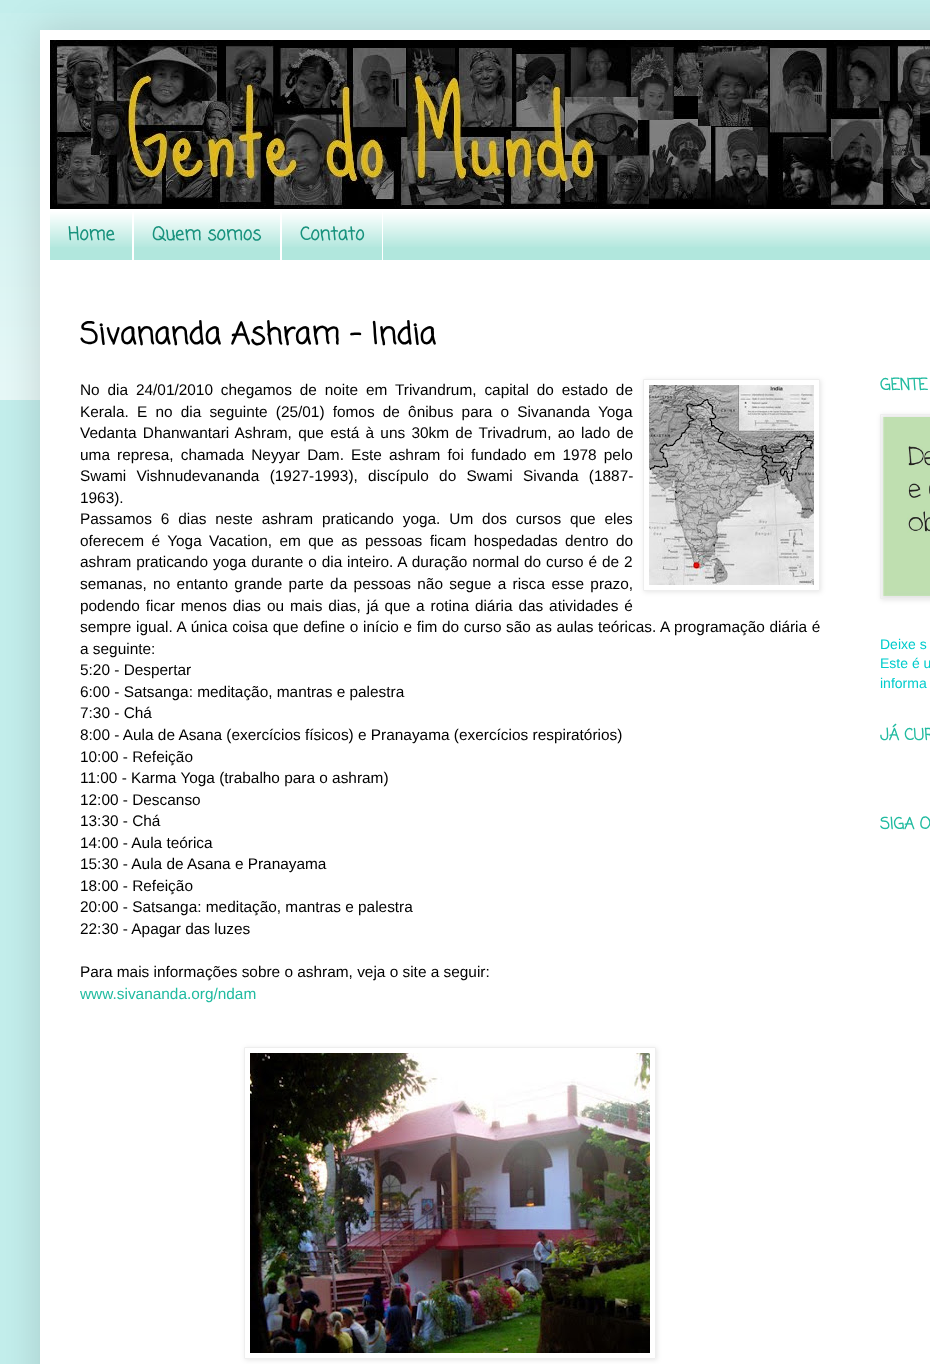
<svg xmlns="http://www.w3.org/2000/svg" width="930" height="1364">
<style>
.a{font:bold 18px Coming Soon;fill:#18927d}
.b{font:bold 30px Coming Soon;fill:#000}
.c{font:15.4px Liberation Sans;fill:#000}
.d{font:15.4px Liberation Sans;fill:#21bba0}
.e{font:bold 16px Coming Soon;fill:#21bba0}
.f{font:14px Liberation Sans;fill:#0cc}
</style>
<defs>
<clipPath id="clip1"><path d="M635 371h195v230h-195zm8 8h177v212h-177z" clip-rule="evenodd"/></clipPath>
<clipPath id="clip2"><path d="M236 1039h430v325h-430zm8 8h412v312h-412z" clip-rule="evenodd"/></clipPath>
</defs>
<rect width="100%" height="100%" fill="#c3eeec"/>
<image href="1.png" x="0" y="13" width="930" height="387"/>
<path fill="#00000026" filter="blur(20px)" d="M40 30h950v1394H40z"/>
<path fill="#fff" d="M40 30h890v1334H40z"/>
<image href="2.png" x="50" y="40" width="880" height="169"/>
<path fill="#b1e7dd" d="M50 211h880v49H50z"/>
<image href="3.png" x="50" y="210" width="880" height="37"/>
<path fill="#fff" d="M132 210h2v50H132z"/>
<path fill="#fff" d="M280 210h2v50H280z"/>
<path fill="#fff" d="M382 210h1v50H382z"/>
<g clip-path="url(#clip1)">
<path fill="#0000001a" filter="blur(2.5px)" d="M644 380h177v212H644z"/>
</g>
<path fill="none" stroke="#eee" d="M643.5 379.5h176v211H643.5z"/>
<image href="4.png" x="649" y="385" width="165" height="200"/>
<g clip-path="url(#clip2)">
<path fill="#0000001a" filter="blur(2.5px)" d="M245 1048h412v312H245z"/>
</g>
<path fill="none" stroke="#eee" d="M244.5 1047.5h411v311H244.5z"/>
<image href="5.png" x="250" y="1053" width="400" height="300"/>
<path fill="#0000001a" filter="blur(2.5px)" d="M881 415h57v185H881z"/>
<path fill="none" stroke="#eee" d="M880.5 414.5h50v184H880.5z"/>
<image href="6.png" x="883" y="417" width="47" height="179"/>
<text class="a" x="68" y="240">Home</text>
<text class="a" x="152" y="240">Quem somos</text>
<text class="a" x="300" y="240">Contato</text>
<text class="b" x="80" y="344">Sivananda Ashram - India</text>
<text class="c" x="80" y="395" word-spacing="3.6">No dia 24/01/2010 chegamos de noite em Trivandrum, capital do estado de</text>
<text class="c" x="80" y="417" word-spacing="3.9">Kerala. E no dia seguinte (25/01) fomos de ônibus para o Sivananda Yoga</text>
<text class="c" x="80" y="438" word-spacing="2">Vedanta Dhanwantari Ashram, que está à uns 30km de Trivadrum, ao lado de</text>
<text class="c" x="80" y="460" word-spacing="2.9">uma represa, chamada Neyyar Dam. Este ashram foi fundado em 1978 pelo</text>
<text class="c" x="80" y="481" word-spacing="6">Swami Vishnudevananda (1927-1993), discípulo do Swami Sivanda (1887-</text>
<text class="c" x="80" y="503">1963).</text>
<text class="c" x="80" y="524" word-spacing="4.6">Passamos 6 dias neste ashram praticando yoga. Um dos cursos que eles</text>
<text class="c" x="80" y="546" word-spacing="3.1">oferecem é Yoga Vacation, em que as pessoas ficam hospedadas dentro do</text>
<text class="c" x="80" y="567" word-spacing="0.6">ashram praticando yoga durante o dia inteiro. A duração normal do curso é de 2</text>
<text class="c" x="80" y="589" word-spacing="2.1">semanas, no entanto grande parte da pessoas não segue a risca esse prazo,</text>
<text class="c" x="80" y="611" word-spacing="1.6">podendo ficar menos dias ou mais dias, já que a rotina diária das atividades é</text>
<text class="c" x="80" y="632" word-spacing="0.4">sempre igual. A única coisa que define o início e fim do curso são as aulas teóricas. A programação diária é</text>
<text class="c" x="80" y="654">a seguinte:</text>
<text class="c" x="80" y="675">5:20 - Despertar</text>
<text class="c" x="80" y="697">6:00 - Satsanga: meditação, mantras e palestra</text>
<text class="c" x="80" y="718">7:30 - Chá</text>
<text class="c" x="80" y="740">8:00 - Aula de Asana (exercícios físicos) e Pranayama (exercícios respiratórios)</text>
<text class="c" x="80" y="762">10:00 - Refeição</text>
<text class="c" x="80" y="783">11:00 - Karma Yoga (trabalho para o ashram)</text>
<text class="c" x="80" y="805">12:00 - Descanso</text>
<text class="c" x="80" y="826">13:30 - Chá</text>
<text class="c" x="80" y="848">14:00 - Aula teórica</text>
<text class="c" x="80" y="869">15:30 - Aula de Asana e Pranayama</text>
<text class="c" x="80" y="891">18:00 - Refeição</text>
<text class="c" x="80" y="912">20:00 - Satsanga: meditação, mantras e palestra</text>
<text class="c" x="80" y="934">22:30 - Apagar das luzes</text>
<text class="c" x="80" y="977">Para mais informações sobre o ashram, veja o site a seguir:</text>
<text class="d" x="80" y="999">www.sivananda.org/ndam</text>
<text class="e" x="880" y="390">GENTE</text>
<text class="f" x="880" y="649">Deixe s</text>
<text class="f" x="880" y="668">Este é u</text>
<text class="f" x="880" y="688">informa</text>
<text class="e" x="880" y="740">JÁ CUR</text>
<text class="e" x="880" y="829">SIGA O</text>
</svg>
